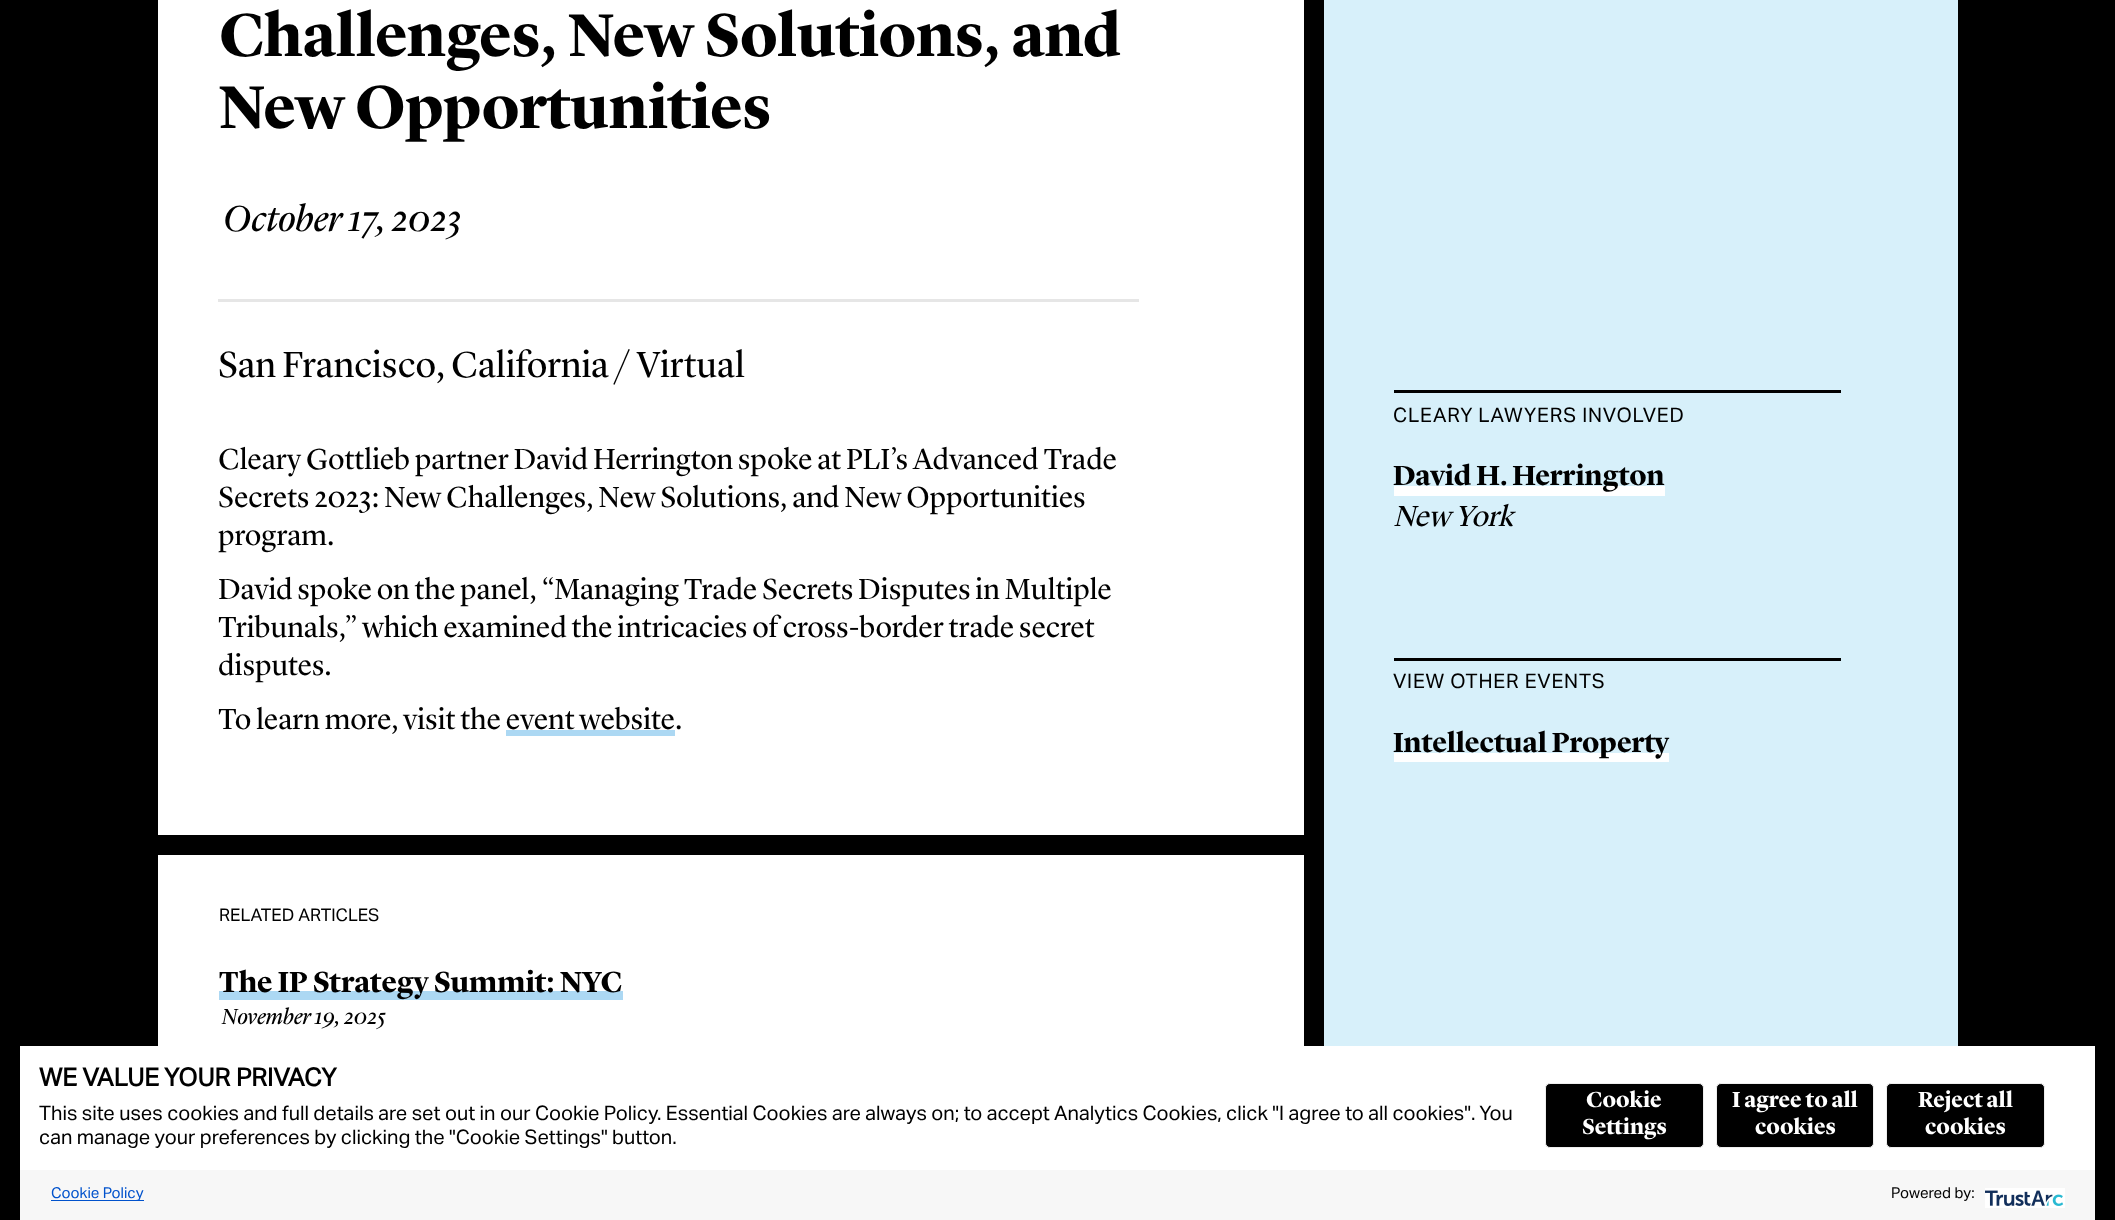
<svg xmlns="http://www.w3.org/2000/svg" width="2115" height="1220">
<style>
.a{font:bold 62.5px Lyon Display;fill:#000}
.b{font:italic 37.5px Lyon Display;fill:#000}
.c{font:37.5px Lyon Display;fill:#000}
.d{font:30px Lyon Display;fill:#000}
.e{font:17.5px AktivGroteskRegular;fill:#000}
.f{font:bold 30px Lyon Display;fill:#000}
.g{font:italic 22.5px Lyon Display;fill:#000}
.h{font:20px AktivGroteskRegular;letter-spacing:0.8px;fill:#000}
.i{font:bold 28.75px Lyon Display;fill:#000}
.j{font:italic 30px 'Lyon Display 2';fill:#000}
.k{font:bold 25px AktivGroteskRegular;fill:#000}
.l{font:20px AktivGroteskRegular;fill:#000}
.m{font:bold 22.5px Lyon Display;fill:#fff}
.n{font:15px AktivGroteskRegular;fill:#0052cc}
.o{font:15px AktivGroteskRegular;fill:#000}
</style>
<rect width="100%" height="100%" fill="#000"/>
<path fill="#d7f0fa" d="M1324 0h634v1046H1324z"/>
<path fill="#fff" d="M158 0h1146v1046H158z"/>
<path fill="#e6e6e6" d="M218 299h921v3H218z"/>
<path fill="#000" d="M158 835h1146v20H158z"/>
<path fill="#acd8f3" d="M219 991h404v9H219z"/>
<path fill="#000" d="M1394 390h447v3H1394z"/>
<path fill="#fff" d="M1394 486h271v10H1394z"/>
<path fill="#000" d="M1394 658h447v3H1394z"/>
<path fill="#fff" d="M1394 753h275v9H1394z"/>
<path fill="#fff" d="M20 1046h2075v124H20z"/>
<rect fill="#000" stroke="#eee" x="1545.5" y="1083.5" width="158" height="64" rx="4.5"/>
<rect fill="#000" stroke="#eee" x="1716.5" y="1083.5" width="157" height="64" rx="4.5"/>
<rect fill="#000" stroke="#eee" x="1886.5" y="1083.5" width="158" height="64" rx="4.5"/>
<path fill="#f7f7f7" d="M20 1170h2075v50H20z"/>
<path fill="#0052cc" d="M51 1200h93v1H51z"/>
<image href="1.png" x="1985" y="1188" width="80" height="20"/>
<text class="a" x="219" y="56">Challenges, New Solutions, and</text>
<text class="a" x="219" y="128">New Opportunities</text>
<text class="b" x="223" y="231">October 17, 2023</text>
<text class="c" x="218" y="377">San Francisco, California / Virtual</text>
<text class="d" x="218" y="469">Cleary Gottlieb partner David Herrington spoke at PLI’s Advanced Trade</text>
<text class="d" x="218" y="507">Secrets 2023: New Challenges, New Solutions, and New Opportunities</text>
<text class="d" x="218" y="545">program.</text>
<text class="d" x="218" y="599">David spoke on the panel, “Managing Trade Secrets Disputes in Multiple</text>
<text class="d" x="218" y="637">Tribunals,” which examined the intricacies of cross-border trade secret</text>
<text class="d" x="218" y="675">disputes.</text>
<text class="d" x="218" y="729">To learn more, visit the event website</text>
<text class="d" x="675" y="729">.</text>
<path fill="#acd8f3" d="M506 730h169v6H506z"/>
<text class="e" x="219" y="921">RELATED ARTICLES</text>
<text class="f" x="219" y="992">The IP Strategy Summit: NYC</text>
<text class="g" x="222" y="1024">November 19, 2025</text>
<text class="h" x="1393" y="422">CLEARY LAWYERS INVOLVED</text>
<text class="i" x="1393" y="485">David H. Herrington</text>
<text class="j" x="1393" y="526">New York</text>
<text class="h" x="1393" y="688">VIEW OTHER EVENTS</text>
<text class="i" x="1393" y="752">Intellectual Property</text>
<text class="k" x="39" y="1086">WE VALUE YOUR PRIVACY</text>
<text class="l" x="39" y="1120">This site uses cookies and full details are set out in our Cookie Policy. Essential Cookies are always on; to accept Analytics Cookies, click "I agree to all cookies". You</text>
<text class="l" x="39" y="1144">can manage your preferences by clicking the "Cookie Settings" button.</text>
<text class="m" x="1586" y="1107">Cookie</text>
<text class="m" x="1582" y="1134">Settings</text>
<text class="m" x="1732" y="1107">I agree to all</text>
<text class="m" x="1755" y="1134">cookies</text>
<text class="m" x="1918" y="1107">Reject all</text>
<text class="m" x="1925" y="1134">cookies</text>
<text class="n" x="51" y="1198">Cookie Policy</text>
<text class="o" x="1891" y="1198">Powered by:</text>
</svg>
